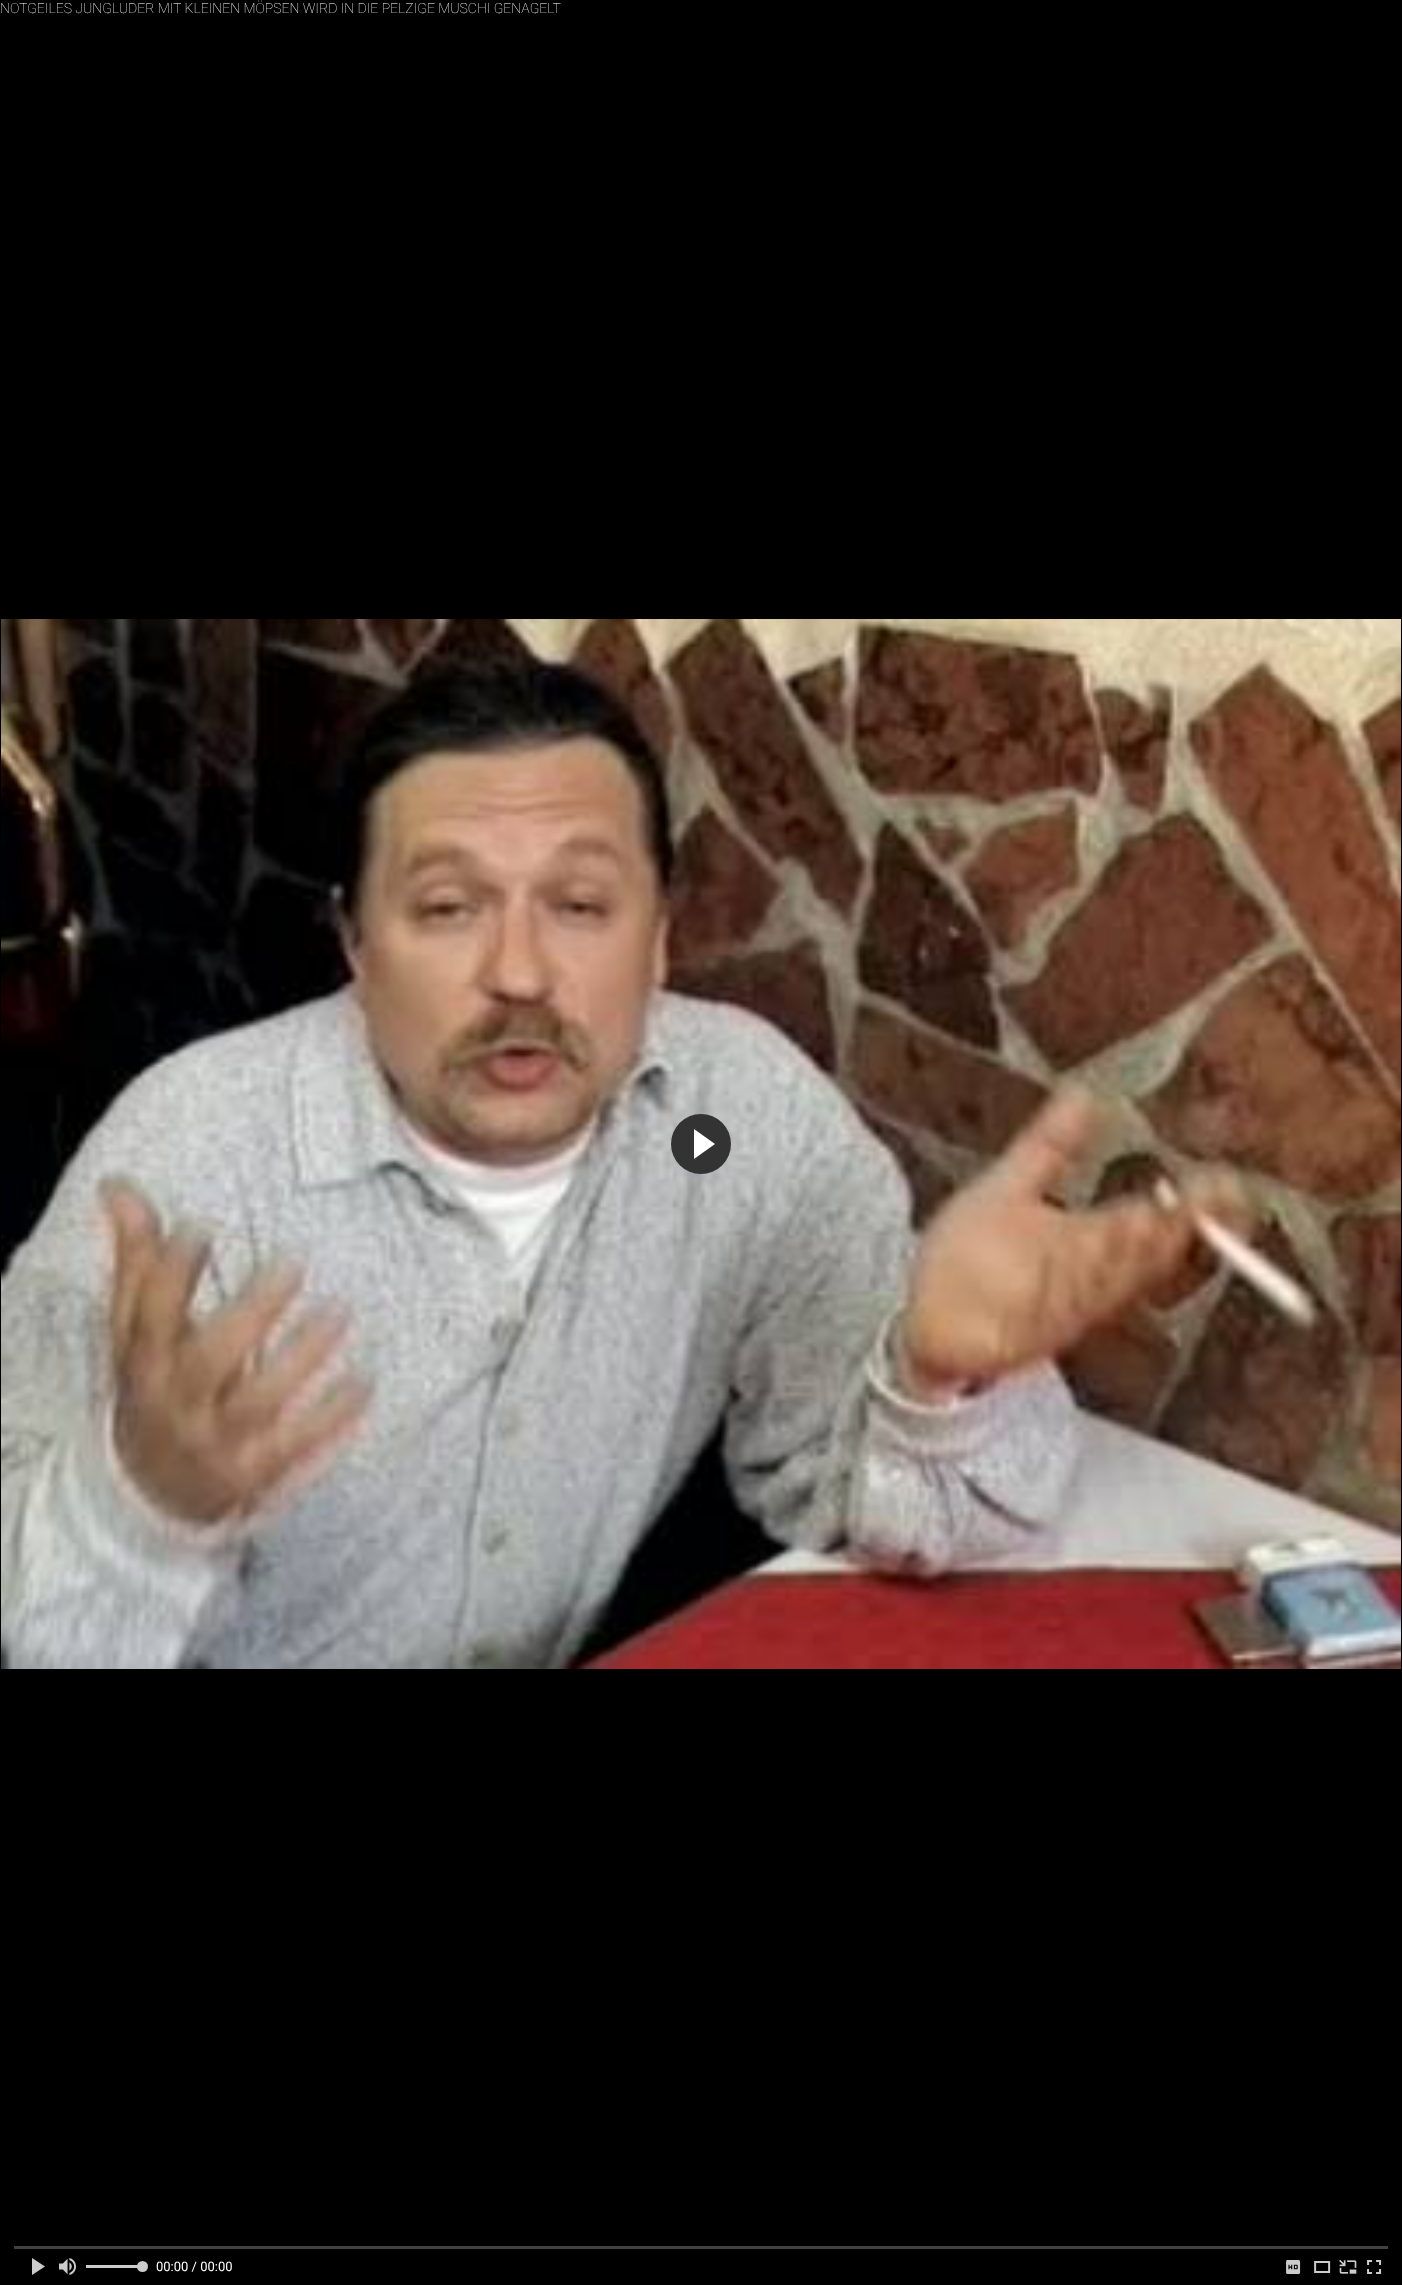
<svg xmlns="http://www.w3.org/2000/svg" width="1402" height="2285">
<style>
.a{font:100 14px Roboto;fill:#fff}
.b{font:13px Roboto;fill:#fff}
</style>
<rect width="100%" height="100%" fill="#000"/>
<image href="1.png" x="1" y="619" width="1400" height="1050"/>
<circle fill="#333" cx="701" cy="1144" r="30"/>
<path fill="#fff" d="M694 1159v-30l21 15z"/>
<path fill="#404040" d="M14 2246h1374v3H14z"/>
<image href="2.png" x="32" y="2258" width="13" height="17"/>
<image href="3.png" x="59" y="2258" width="17" height="17"/>
<path fill="#ccc" d="M86 2265h56v3H86z"/>
<circle fill="#ccc" cx="142.5" cy="2266.5" r="5.5"/>
<image href="4.png" x="1286" y="2260" width="15" height="14"/>
<image href="5.png" x="1314" y="2261" width="17" height="12"/>
<image href="6.png" x="1339" y="2259" width="18" height="15"/>
<image href="7.png" x="1367" y="2260" width="15" height="14"/>
<text class="a" x="0" y="13">NOTGEILES JUNGLUDER MIT KLEINEN MÖPSEN WIRD IN DIE PELZIGE MUSCHI GENAGELT</text>
<text class="b" x="156" y="2271">00:00 / 00:00</text>
</svg>
